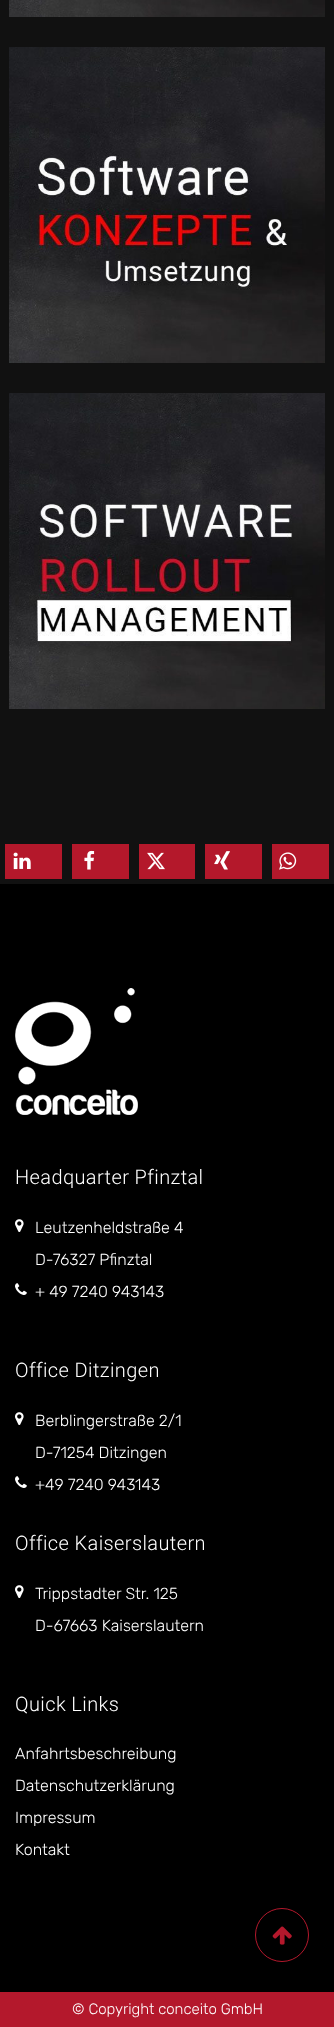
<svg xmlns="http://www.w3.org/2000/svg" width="334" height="2027">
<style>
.a{font:300 20px Roboto;letter-spacing:0.4px;fill:#fff}
.b{font:300 16px Rubik;fill:#fff}
.c{font:300 15px Rubik;fill:#fff}
</style>
<rect width="100%" height="100%" fill="#111"/>
<image href="1.png" x="9" y="0" width="316" height="17"/>
<image href="2.png" x="9" y="47" width="316" height="316"/>
<image href="3.png" x="9" y="393" width="316" height="316"/>
<path fill="#b4182b" d="M5 844h57v35H5z"/>
<image href="4.png" x="13" y="852" width="18" height="18"/>
<path fill="#b4182b" d="M72 844h57v35H72z"/>
<image href="5.png" x="84" y="850" width="11" height="20"/>
<path fill="#b4182b" d="M139 844h56v35H139z"/>
<image href="6.png" x="147" y="852" width="18" height="18"/>
<path fill="#b4182b" d="M205 844h57v35H205z"/>
<image href="7.png" x="214" y="851" width="16" height="19"/>
<path fill="#b4182b" d="M272 844h57v35H272z"/>
<image href="8.png" x="279" y="852" width="18" height="18"/>
<path fill="#000" d="M0 884h334v1108H0z"/>
<image href="9.png" x="15" y="988" width="123" height="127"/>
<image href="10.png" x="15" y="1219" width="9" height="13"/>
<image href="11.png" x="15" y="1283" width="12" height="12"/>
<image href="10.png" x="15" y="1412" width="9" height="13"/>
<image href="11.png" x="15" y="1476" width="12" height="12"/>
<image href="10.png" x="15" y="1585" width="9" height="13"/>
<path fill="#b4182c" d="M0 1992h334v35H0z"/>
<circle fill="none" stroke="#b4182c" cx="282" cy="1935" r="26.5"/>
<image href="12.png" x="272" y="1926" width="20" height="19"/>
<text class="a" x="15" y="1184">Headquarter Pfinztal</text>
<text class="b" x="35" y="1233">Leutzenheldstraße 4</text>
<text class="b" x="35" y="1265">D-76327 Pfinztal</text>
<text class="b" x="35" y="1297">+ 49 7240 943143</text>
<text class="a" x="15" y="1377">Office Ditzingen</text>
<text class="b" x="35" y="1426">Berblingerstraße 2/1</text>
<text class="b" x="35" y="1458">D-71254 Ditzingen</text>
<text class="b" x="35" y="1490">+49 7240 943143</text>
<text class="a" x="15" y="1550">Office Kaiserslautern</text>
<text class="b" x="35" y="1599">Trippstadter Str. 125</text>
<text class="b" x="35" y="1631">D-67663 Kaiserslautern</text>
<text class="a" x="15" y="1711">Quick Links</text>
<text class="b" x="15" y="1759">Anfahrtsbeschreibung</text>
<text class="b" x="15" y="1791">Datenschutzerklärung</text>
<text class="b" x="15" y="1823">Impressum</text>
<text class="b" x="15" y="1855">Kontakt</text>
<text class="c" x="72" y="2014">© Copyright conceito GmbH</text>
</svg>
